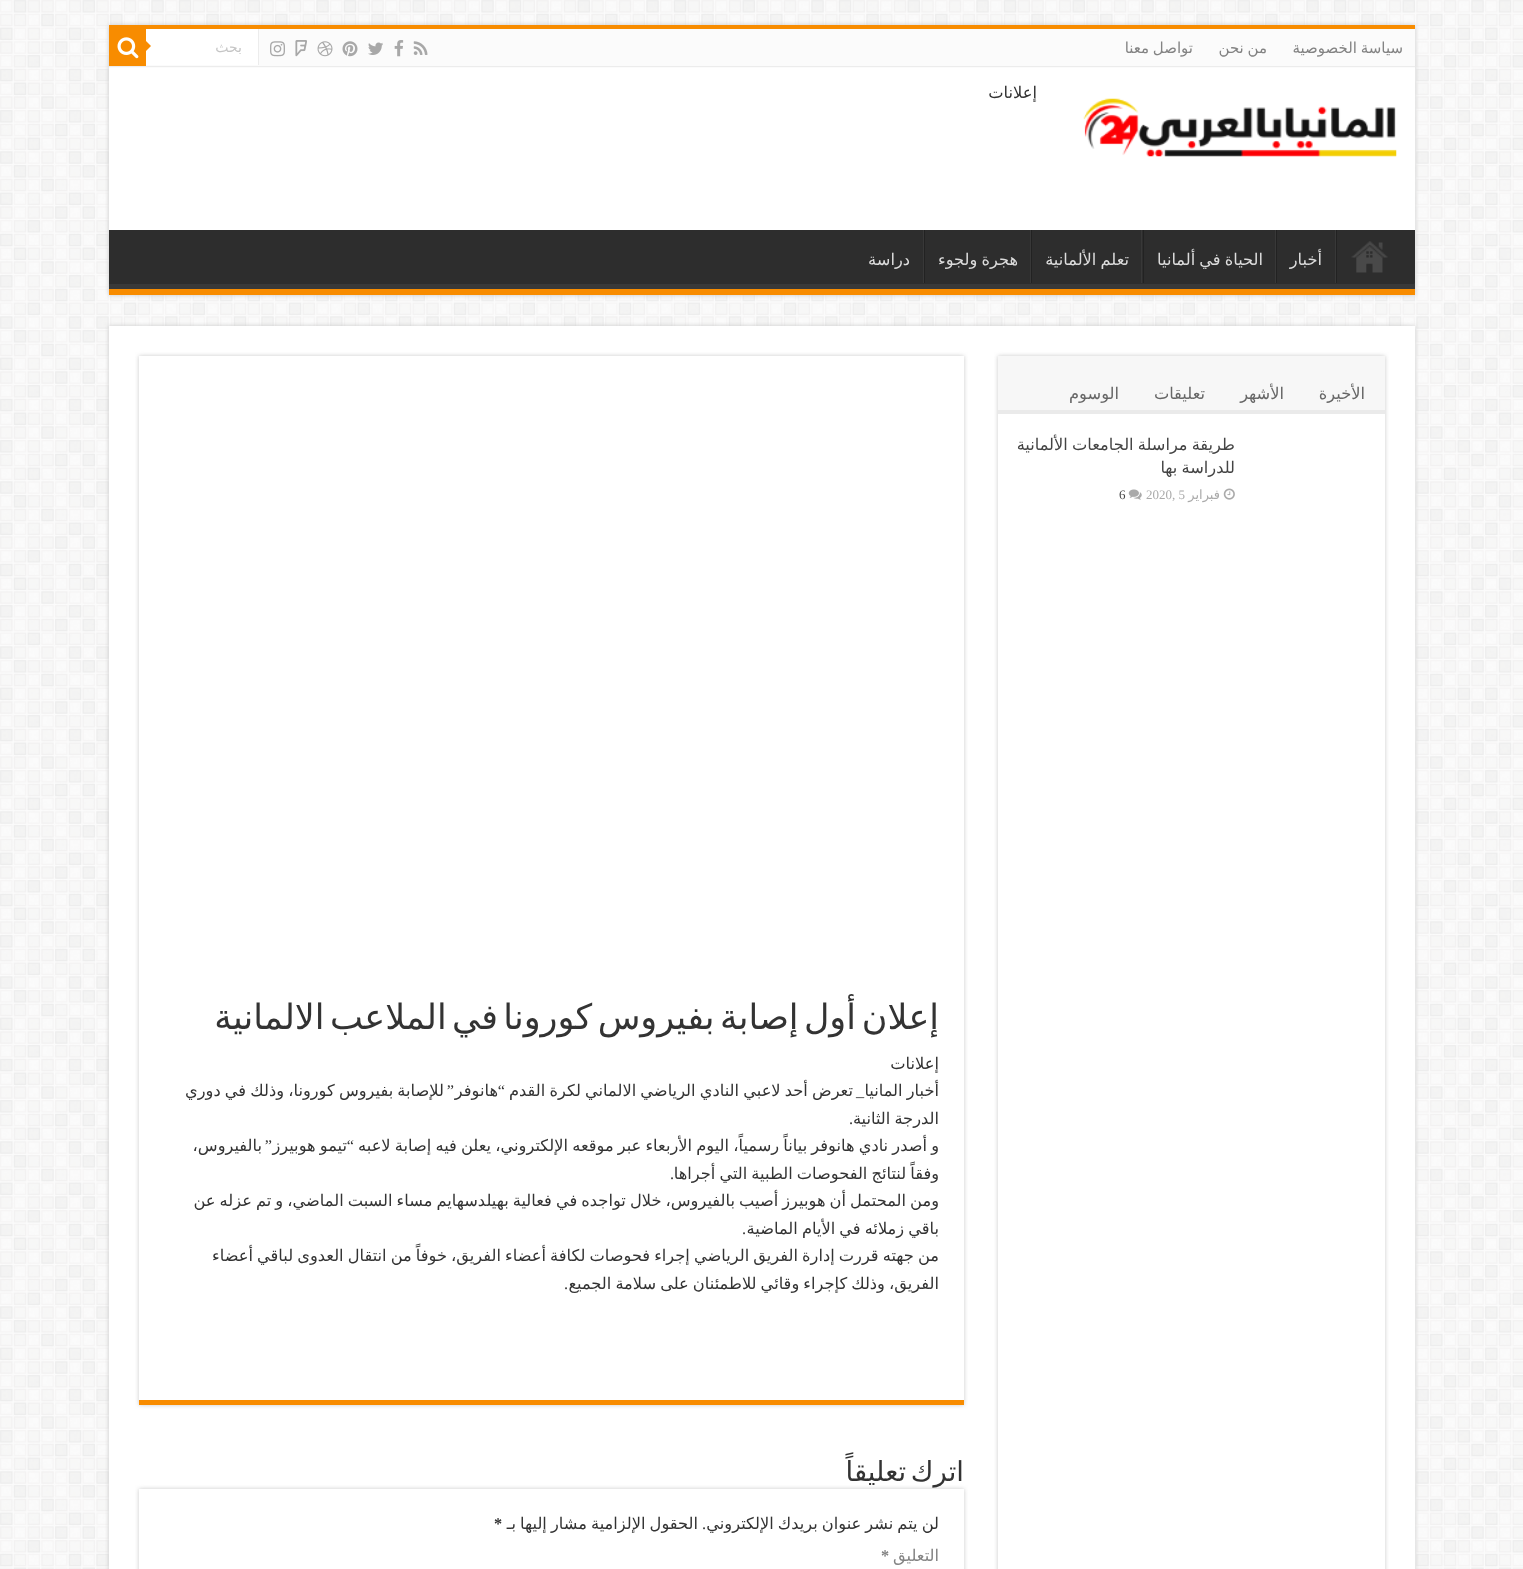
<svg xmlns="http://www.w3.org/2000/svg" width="1523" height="1569">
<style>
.a{font:15px DejaVu Sans;direction:rtl;fill:#838383}
.b{font:14px DejaVu Sans;direction:rtl;fill:#c5c5c5}
.c{font:16.25px DejaVu Sans;direction:rtl;fill:#333}
.d{font:16.25px DejaVu Sans;direction:rtl;fill:#ddd}
.e{font:16.25px DejaVu Sans;direction:rtl;fill:#666}
.f{font:16.25px DejaVu Sans;direction:rtl;fill:#444}
.g{font:13px DejaVu Sans;direction:rtl;fill:#aaa}
.h{font:13px Liberation Serif;fill:#aaa}
.i{font:13px Liberation Serif;fill:#444}
.j{font:35px DejaVu Sans;direction:rtl;fill:#333}
.k{font:16.25px Liberation Serif;direction:rtl;fill:#333}
.l{font:27.5px DejaVu Sans;direction:rtl;fill:#333}
.m{font:bold 16.25px Liberation Serif;fill:#333}
.n{font:16.25px DejaVu Sans;direction:rtl;fill:#838383}
.o{font:bold 16.25px Liberation Serif;fill:#838383}
</style>
<defs>
<clipPath id="clip1"><path d="M109 230h1306v59H109z"/></clipPath>
</defs>
<rect width="100%" height="100%" fill="#fff"/>
<image href="1.png" x="0" y="0" width="1523" height="1569"/>
<path fill="#cacaca" filter="blur(2px)" d="M109 25h1306v270H109z"/>
<path fill="#fff" d="M109 68h1306v162H109z"/>
<path fill="#f88c00" d="M109 25h1306v4H109z"/>
<path fill="#fbfbfb" d="M109 29h1306v39H109z"/>
<path fill="#ececec" d="M109 66h1306v1H109z"/>
<image href="2.png" x="413" y="41" width="15" height="14"/>
<image href="3.png" x="394" y="40" width="10" height="17"/>
<image href="4.png" x="368" y="42" width="15" height="13"/>
<image href="5.png" x="342" y="41" width="16" height="16"/>
<image href="6.png" x="317" y="41" width="16" height="16"/>
<image href="7.png" x="295" y="40" width="12" height="17"/>
<image href="8.png" x="270" y="41" width="15" height="16"/>
<path fill="#fff" d="M146 29h112v36H146z"/>
<path fill="#ececec" d="M258 29h1v36H258z"/>
<path fill="#f88c00" d="M109 29h37v37H109z"/>
<image href="9.png" x="117" y="37" width="22" height="22"/>
<path fill="#f88c00" d="M146 51v-10l5 5z"/>
<image href="10.png" x="1083" y="98" width="314" height="59"/>
<path fill="#2d2d2d" d="M109 230h1306v54H109z"/>
<g clip-path="url(#clip1)">
<path fill="#393939" fill-rule="evenodd" d="M-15 106h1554v306h-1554zm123 116h1306c0 0 1 1 1 2v58c0 1-1 2-1 2h-1306c-1 0-2-1-2-2v-58c0-1 1-2 2-2z"/>
</g>
<path fill="#f88c00" d="M109 289h1306v6H109z"/>
<image href="11.png" x="1351" y="241" width="37" height="32"/>
<path fill="#222" d="M1336 230h1v53H1336z"/>
<path fill="#383838" d="M1335 230h1v53H1335z"/>
<path fill="#222" d="M1276 230h1v53H1276z"/>
<path fill="#383838" d="M1275 230h1v53H1275z"/>
<path fill="#222" d="M1143 230h1v53H1143z"/>
<path fill="#383838" d="M1141 230h1v53H1141z"/>
<path fill="#222" d="M1031 230h1v53H1031z"/>
<path fill="#383838" d="M1030 230h1v53H1030z"/>
<path fill="#222" d="M924 230h1v53H924z"/>
<path fill="#383838" d="M923 230h1v53H923z"/>
<path fill="#cacaca" filter="blur(2px)" d="M109 326h1306v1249H109z"/>
<path fill="#fff" d="M109 326h1306v1243H109z"/>
<path fill="#cacaca" filter="blur(2px)" d="M998 356h387v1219H998z"/>
<path fill="#fff" d="M998 414h387v1155H998z"/>
<path fill="#f7f7f7" d="M998 356h387v54H998z"/>
<path fill="#eaeaea" d="M998 410h387v4H998z"/>
<image href="12.png" x="1223" y="488" width="12" height="12"/>
<image href="13.png" x="1128" y="489" width="14" height="11"/>
<path fill="#cacaca" filter="blur(2px)" d="M139 356h825v1049H139z"/>
<path fill="#fff" d="M139 356h825v1044H139z"/>
<path fill="#f88c00" d="M139 1400h825v5H139z"/>
<path fill="#cacaca" filter="blur(2px)" d="M139 1489h825v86H139z"/>
<path fill="#fff" d="M139 1489h825v80H139z"/>
<text class="a" x="1403" y="53" word-spacing="-1">سياسة الخصوصية</text>
<text class="a" x="1267" y="53" word-spacing="-1">من نحن</text>
<text class="a" x="1193" y="53" word-spacing="-1">تواصل معنا</text>
<text class="b" x="242" y="52">بحث</text>
<text class="c" x="1037" y="98">إعلانات</text>
<text class="d" x="1322" y="265">أخبار</text>
<text class="d" x="1263" y="265" word-spacing="-1.1">الحياة في ألمانيا</text>
<text class="d" x="1129" y="265" word-spacing="-1.1">تعلم الألمانية</text>
<text class="d" x="1018" y="265" word-spacing="-1.1">هجرة ولجوء</text>
<text class="d" x="910" y="265">دراسة</text>
<text class="e" x="1365" y="399">الأخيرة</text>
<text class="e" x="1284" y="399">الأشهر</text>
<text class="e" x="1205" y="399">تعليقات</text>
<text class="e" x="1119" y="399">الوسوم</text>
<text class="f" x="1235" y="450" word-spacing="-1.1">طريقة مراسلة الجامعات الألمانية</text>
<text class="f" x="1235" y="473" word-spacing="-1.1">للدراسة بها</text>
<text class="g" x="1220" y="499">فبراير</text>
<text class="h" x="1146" y="499">2020, 5</text>
<text class="i" x="1119" y="499">6</text>
<text class="j" x="939" y="1029">إعلان</text>
<text class="j" x="856" y="1029" word-spacing="-5.75">أول إصابة بفيروس كورونا في الملاعب الالمانية</text>
<text class="c" x="939" y="1069">إعلانات</text>
<text class="c" x="939" y="1096" word-spacing="-1">أخبار المانيا</text>
<text class="c" x="853" y="1096" word-spacing="-1">تعرض أحد لاعبي النادي الرياضي الالماني لكرة القدم</text>
<text class="k" x="505" y="1096">“</text>
<text class="k" x="454" y="1096">”</text>
<text class="c" x="498" y="1096">هانوفر</text>
<text class="c" x="444" y="1096" word-spacing="-1">للإصابة بفيروس كورونا، وذلك في دوري</text>
<text class="k" x="864" y="1096">_</text>
<text class="c" x="939" y="1124" word-spacing="-1.1">الدرجة الثانية</text>
<text class="k" x="853" y="1124">.</text>
<text class="c" x="939" y="1151" word-spacing="-1">و أصدر نادي هانوفر بياناً رسمياً، اليوم الأربعاء عبر موقعه الإلكتروني، يعلن فيه إصابة لاعبه</text>
<text class="k" x="354" y="1151">“</text>
<text class="k" x="272" y="1151">”</text>
<text class="c" x="262" y="1151">بالفيروس،</text>
<text class="c" x="347" y="1151" word-spacing="-1">تيمو هوبيرز</text>
<text class="c" x="939" y="1179" word-spacing="-1.1">وفقاً لنتائج الفحوصات الطبية التي أجراها</text>
<text class="k" x="674" y="1179">.</text>
<text class="c" x="939" y="1206" word-spacing="-1.1">ومن المحتمل أن هوبيرز أصيب بالفيروس، خلال تواجده في فعالية بهيلدسهايم مساء السبت الماضي، و تم عزله عن</text>
<text class="c" x="939" y="1234" word-spacing="-1.1">باقي زملائه في الأيام الماضية</text>
<text class="k" x="746" y="1234">.</text>
<text class="c" x="939" y="1261" word-spacing="-1.1">من جهته قررت إدارة الفريق الرياضي إجراء فحوصات لكافة أعضاء الفريق، خوفاً من انتقال العدوى لباقي أعضاء</text>
<text class="c" x="939" y="1289" word-spacing="-1.1">الفريق، وذلك كإجراء وقائي للاطمئنان على سلامة الجميع</text>
<text class="k" x="568" y="1289">.</text>
<text class="l" x="964" y="1481" word-spacing="-4">اترك تعليقاً</text>
<text class="c" x="939" y="1529" word-spacing="-1.1">لن يتم نشر عنوان بريدك الإلكتروني</text>
<text class="c" x="698" y="1529" word-spacing="-1.1">الحقول الإلزامية مشار إليها بـ</text>
<text class="m" x="494" y="1529">*</text>
<text class="k" x="706" y="1529">.</text>
<text class="n" x="939" y="1561">التعليق</text>
<text class="o" x="881" y="1561">*</text>
</svg>
